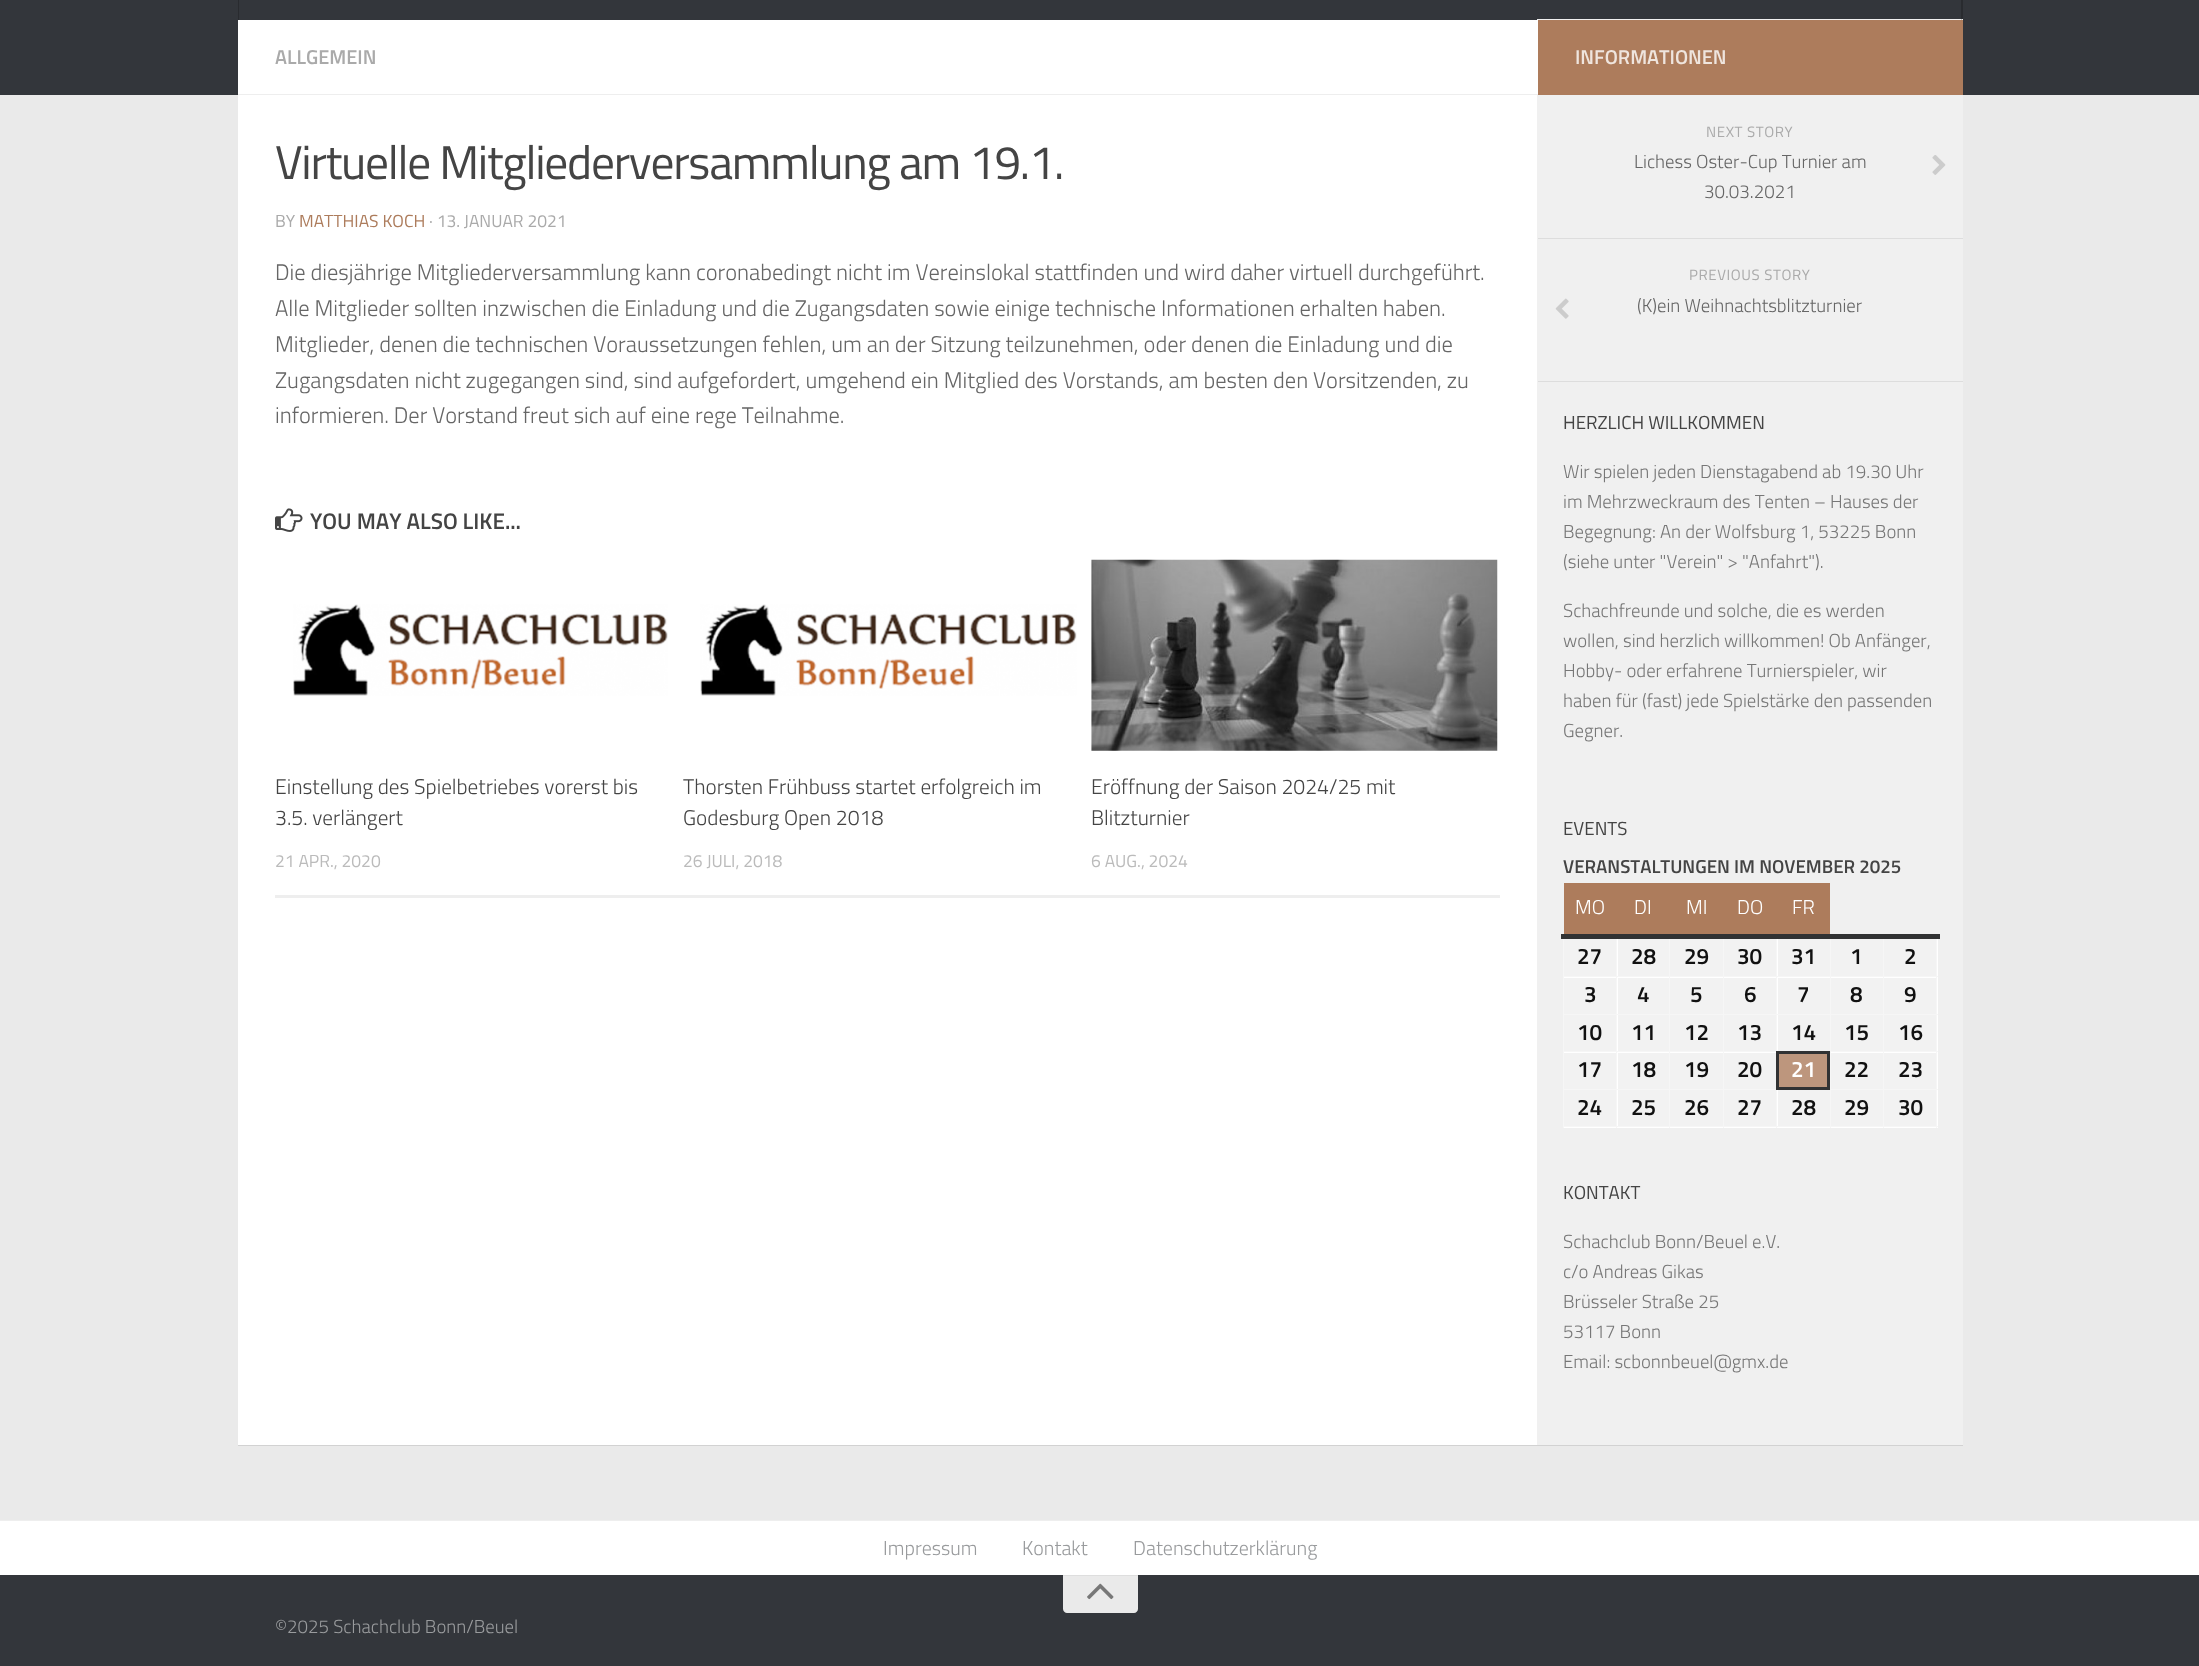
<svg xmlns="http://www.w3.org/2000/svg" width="2199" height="1666">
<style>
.a{font:600 20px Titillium;fill:#aaa}
.b{font:47.5px Titillium;letter-spacing:-1.25px;fill:#444}
.c{font:17.5px Titillium;fill:#aaa}
.d{font:17.5px Titillium;fill:#ad7c5c}
.e{font:300 22.5px Titillium;fill:#666}
.f{font:600 22.5px Titillium;fill:#444}
.g{font:300 21.25px Titillium;fill:#444}
.h{font:17.5px Titillium;fill:#bbb}
.i{font:600 20px Titillium;fill:#efe5de}
.j{font:15px Titillium;letter-spacing:0.6px;fill:#aaa}
.k{font:300 18.75px Titillium;fill:#666}
.l{font:18.75px Titillium;fill:#444}
.m{font:300 18.75px Titillium;fill:#777}
.n{font:600 18.75px Titillium;fill:#444}
.o{font:300 20px Titillium;fill:#fff}
.p{font:600 22.5px Titillium;fill:#111}
.q{font:600 22.5px Titillium;fill:#fff}
.r{font:300 20px Titillium;fill:#999b9d}
.s{font:300 18.75px Titillium;fill:#999b9d}
</style>
<rect width="100%" height="100%" fill="#eaeaea"/>
<path fill="#0000001a" filter="blur(0.5px)" d="M238 21h1725v1425H238z"/>
<path fill="#33363b" d="M0 0h2199v95H0z"/>
<path fill="#292b2f" d="M1961 0h1v20H1961z"/>
<path fill="#292b2f" d="M238-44v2h1724v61h1v-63z"/>
<path fill="#292b2f" d="M238 0h1v20H238z"/>
<path fill="#fff" d="M238 95h1299v1350H238z"/>
<path fill="#f0f0f0" d="M1537 19h426v1426H1537z"/>
<path fill="#c0c0c0" d="M1961 19h1v1H1961z"/>
<path fill="#fff" d="M238 20h1300v74H238z"/>
<path fill="#eee" d="M238 94h1300v1H238z"/>
<image href="1.png" x="275" y="508" width="28" height="24"/>
<path fill="#eee" d="M275 895h1225v3H275z"/>
<image href="2.png" x="293" y="604" width="375" height="92"/>
<image href="3.png" x="700" y="604" width="377" height="92"/>
<image href="4.png" x="1091" y="559" width="407" height="192"/>
<path fill="#ad7c5c" d="M1538 20h425v75H1538z"/>
<path fill="#ddd" d="M1538 238h425v1H1538z"/>
<image href="5.png" x="1932" y="155" width="14" height="20"/>
<path fill="#ddd" d="M1538 381h425v1H1538z"/>
<image href="6.png" x="1555" y="298" width="14" height="21"/>
<path fill="#fff" d="M1564 939h374v189H1564z"/>
<path fill="#f6f6f6" d="M1883 976h55v1H1883z"/>
<path fill="#f6f6f6" d="M1883 1014h55v1H1883z"/>
<path fill="#f6f6f6" d="M1883 1051h55v1H1883z"/>
<path fill="#f6f6f6" d="M1883 1089h55v1H1883z"/>
<path fill="#f6f6f6" d="M1936 1089h1v39H1936z"/>
<path fill="#f6f6f6" d="M1883 1126h55v1H1883z"/>
<path fill="#f6f6f6" d="M1883 1089h1v39H1883z"/>
<path fill="#f6f6f6" d="M1830 1089h54v1H1830z"/>
<path fill="#f6f6f6" d="M1883 1051h1v39H1883z"/>
<path fill="#f6f6f6" d="M1830 1051h54v1H1830z"/>
<path fill="#f6f6f6" d="M1883 1014h1v39H1883z"/>
<path fill="#f6f6f6" d="M1830 1014h54v1H1830z"/>
<path fill="#f6f6f6" d="M1883 976h1v39H1883z"/>
<path fill="#f6f6f6" d="M1830 976h54v1H1830z"/>
<path fill="#f6f6f6" d="M1830 1126h54v1H1830z"/>
<path fill="#f6f6f6" d="M1830 1089h1v39H1830z"/>
<path fill="#f6f6f6" d="M1830 1051h1v39H1830z"/>
<path fill="#f6f6f6" d="M1830 1014h1v39H1830z"/>
<path fill="#f6f6f6" d="M1776 1014h55v1H1776z"/>
<path fill="#f6f6f6" d="M1830 976h1v39H1830z"/>
<path fill="#f6f6f6" d="M1776 976h55v1H1776z"/>
<path fill="#f6f6f6" d="M1723 1051h55v1H1723z"/>
<path fill="#f6f6f6" d="M1776 1014h1v39H1776z"/>
<path fill="#f6f6f6" d="M1723 1014h55v1H1723z"/>
<path fill="#f6f6f6" d="M1776 976h1v39H1776z"/>
<path fill="#f6f6f6" d="M1723 976h55v1H1723z"/>
<path fill="#f6f6f6" d="M1776 1126h55v1H1776z"/>
<path fill="#f6f6f6" d="M1776 1089h1v39H1776z"/>
<path fill="#f6f6f6" d="M1723 1089h55v1H1723z"/>
<path fill="#f6f6f6" d="M1723 1126h55v1H1723z"/>
<path fill="#f6f6f6" d="M1723 1089h1v39H1723z"/>
<path fill="#f6f6f6" d="M1669 1089h55v1H1669z"/>
<path fill="#f6f6f6" d="M1723 1051h1v39H1723z"/>
<path fill="#f6f6f6" d="M1669 1051h55v1H1669z"/>
<path fill="#f6f6f6" d="M1723 1014h1v39H1723z"/>
<path fill="#f6f6f6" d="M1669 1014h55v1H1669z"/>
<path fill="#f6f6f6" d="M1723 976h1v39H1723z"/>
<path fill="#f6f6f6" d="M1669 976h55v1H1669z"/>
<path fill="#f6f6f6" d="M1669 1126h55v1H1669z"/>
<path fill="#f6f6f6" d="M1669 1089h1v39H1669z"/>
<path fill="#f6f6f6" d="M1616 1089h54v1H1616z"/>
<path fill="#f6f6f6" d="M1669 1051h1v39H1669z"/>
<path fill="#f6f6f6" d="M1616 1051h54v1H1616z"/>
<path fill="#f6f6f6" d="M1669 1014h1v39H1669z"/>
<path fill="#f6f6f6" d="M1616 1014h54v1H1616z"/>
<path fill="#f6f6f6" d="M1669 976h1v39H1669z"/>
<path fill="#f6f6f6" d="M1616 976h54v1H1616z"/>
<path fill="#f6f6f6" d="M1616 1126h54v1H1616z"/>
<path fill="#f6f6f6" d="M1616 1089h1v39H1616z"/>
<path fill="#f6f6f6" d="M1563 1089h55v1H1563z"/>
<path fill="#f6f6f6" d="M1616 1051h1v39H1616z"/>
<path fill="#f6f6f6" d="M1563 1051h55v1H1563z"/>
<path fill="#f6f6f6" d="M1616 1014h1v39H1616z"/>
<path fill="#f6f6f6" d="M1563 1014h55v1H1563z"/>
<path fill="#f6f6f6" d="M1616 976h1v39H1616z"/>
<path fill="#f6f6f6" d="M1563 976h55v1H1563z"/>
<path fill="#f6f6f6" d="M1616 936h1v42H1616z"/>
<path fill="#f6f6f6" d="M1669 936h1v42H1669z"/>
<path fill="#f6f6f6" d="M1723 936h1v42H1723z"/>
<path fill="#f6f6f6" d="M1776 936h1v42H1776z"/>
<path fill="#f6f6f6" d="M1830 936h1v42H1830z"/>
<path fill="#f6f6f6" d="M1883 936h1v42H1883z"/>
<path fill="#f6f6f6" d="M1563 1126h55v1H1563z"/>
<path fill="#f6f6f6" d="M1563 1089h1v39H1563z"/>
<path fill="#f6f6f6" d="M1563 1051h1v39H1563z"/>
<path fill="#f6f6f6" d="M1563 1014h1v39H1563z"/>
<path fill="#f6f6f6" d="M1563 936h1v79H1563z"/>
<path fill="#f6f6f6" d="M1936 1051h1v39H1936z"/>
<path fill="#f6f6f6" d="M1936 1014h1v39H1936z"/>
<path fill="#f6f6f6" d="M1936 936h1v79H1936z"/>
<path fill="#313233" d="M1561 934h379v5H1561z"/>
<path fill="#ad7c5c" d="M1564 883h266v51H1564z"/>
<path fill="#f2f2f2" d="M1564 939h52v37H1564z"/>
<path fill="#f2f2f2" d="M1618 939h51v37H1618z"/>
<path fill="#f2f2f2" d="M1670 939h53v37H1670z"/>
<path fill="#f2f2f2" d="M1724 939h52v37H1724z"/>
<path fill="#f2f2f2" d="M1778 939h52v37H1778z"/>
<path fill="#f2f2f2" d="M1831 939h52v37H1831z"/>
<path fill="#f2f2f2" d="M1884 939h52v37H1884z"/>
<path fill="#f2f2f2" d="M1564 978h52v36H1564z"/>
<path fill="#f2f2f2" d="M1618 978h51v36H1618z"/>
<path fill="#f2f2f2" d="M1670 978h53v36H1670z"/>
<path fill="#f2f2f2" d="M1724 978h52v36H1724z"/>
<path fill="#f2f2f2" d="M1778 978h52v36H1778z"/>
<path fill="#f2f2f2" d="M1831 978h52v36H1831z"/>
<path fill="#f2f2f2" d="M1884 978h52v36H1884z"/>
<path fill="#f2f2f2" d="M1564 1015h52v36H1564z"/>
<path fill="#f2f2f2" d="M1618 1015h51v36H1618z"/>
<path fill="#f2f2f2" d="M1670 1015h53v36H1670z"/>
<path fill="#f2f2f2" d="M1724 1015h52v36H1724z"/>
<path fill="#f2f2f2" d="M1778 1015h52v36H1778z"/>
<path fill="#f2f2f2" d="M1831 1015h52v36H1831z"/>
<path fill="#f2f2f2" d="M1884 1015h52v36H1884z"/>
<path fill="#f2f2f2" d="M1564 1053h52v36H1564z"/>
<path fill="#f2f2f2" d="M1618 1053h51v36H1618z"/>
<path fill="#f2f2f2" d="M1670 1053h53v36H1670z"/>
<path fill="#f2f2f2" d="M1724 1053h52v36H1724z"/>
<path fill="#bd967d" d="M1779 1054h48v33H1779z"/>
<path fill="none" stroke="#313233" stroke-width="3" d="M1777.5 1052.5h51v36H1777.5z"/>
<path fill="#f2f2f2" d="M1831 1053h52v36H1831z"/>
<path fill="#f2f2f2" d="M1884 1053h52v36H1884z"/>
<path fill="#f2f2f2" d="M1564 1090h52v36H1564z"/>
<path fill="#f2f2f2" d="M1618 1090h51v36H1618z"/>
<path fill="#f2f2f2" d="M1670 1090h53v36H1670z"/>
<path fill="#f2f2f2" d="M1724 1090h52v36H1724z"/>
<path fill="#f2f2f2" d="M1778 1090h52v36H1778z"/>
<path fill="#f2f2f2" d="M1831 1090h52v36H1831z"/>
<path fill="#f2f2f2" d="M1884 1090h52v36H1884z"/>
<path fill="#fff" d="M0 1521h2199v54H0z"/>
<path fill="#eee" d="M0 1520h2199v1H0z"/>
<path fill="#33363b" d="M0 1575h2199v91H0z"/>
<path fill="#eaeaea" d="M1063 1575h75v34c0 2-2 4-4 4h-67c-2 0-4-2-4-4z"/>
<path fill="#dedede" d="M1063 1575h75v1H1063z"/>
<image href="7.png" x="1087" y="1583" width="27" height="17"/>
<text class="a" x="275" y="64">ALLGEMEIN</text>
<text class="b" x="275" y="179">Virtuelle Mitgliederversammlung am 19.1.</text>
<text class="c" x="275" y="227">BY</text>
<text class="d" x="299" y="227">MATTHIAS KOCH</text>
<text class="c" x="429" y="227">· 13. JANUAR 2021</text>
<text class="e" x="275" y="280">Die diesjährige Mitgliederversammlung kann coronabedingt nicht im Vereinslokal stattfinden und wird daher virtuell durchgeführt.</text>
<text class="e" x="275" y="316">Alle Mitglieder sollten inzwischen die Einladung und die Zugangsdaten sowie einige technische Informationen erhalten haben.</text>
<text class="e" x="275" y="352">Mitglieder, denen die technischen Voraussetzungen fehlen, um an der Sitzung teilzunehmen, oder denen die Einladung und die</text>
<text class="e" x="275" y="388">Zugangsdaten nicht zugegangen sind, sind aufgefordert, umgehend ein Mitglied des Vorstands, am besten den Vorsitzenden, zu</text>
<text class="e" x="275" y="423">informieren. Der Vorstand freut sich auf eine rege Teilnahme.</text>
<text class="f" x="310" y="529">YOU MAY ALSO LIKE...</text>
<text class="g" x="275" y="794">Einstellung des Spielbetriebes vorerst bis</text>
<text class="g" x="275" y="825">3.5. verlängert</text>
<text class="h" x="275" y="867">21 APR., 2020</text>
<text class="g" x="683" y="794">Thorsten Frühbuss startet erfolgreich im</text>
<text class="g" x="683" y="825">Godesburg Open 2018</text>
<text class="h" x="683" y="867">26 JULI, 2018</text>
<text class="g" x="1091" y="794">Eröffnung der Saison 2024/25 mit</text>
<text class="g" x="1091" y="825">Blitzturnier</text>
<text class="h" x="1091" y="867">6 AUG., 2024</text>
<text class="i" x="1575" y="64">INFORMATIONEN</text>
<text class="j" x="1706" y="137">NEXT STORY</text>
<text class="k" x="1634" y="168">Lichess Oster-Cup Turnier am</text>
<text class="k" x="1704" y="198">30.03.2021</text>
<text class="j" x="1689" y="280">PREVIOUS STORY</text>
<text class="k" x="1637" y="312">(K)ein Weihnachtsblitzturnier</text>
<text class="l" x="1563" y="429">HERZLICH WILLKOMMEN</text>
<text class="m" x="1563" y="478">Wir spielen jeden Dienstagabend ab 19.30 Uhr</text>
<text class="m" x="1563" y="508">im Mehrzweckraum des Tenten – Hauses der</text>
<text class="m" x="1563" y="538">Begegnung: An der Wolfsburg 1, 53225 Bonn</text>
<text class="m" x="1563" y="568">(siehe unter "Verein" &gt; "Anfahrt").</text>
<text class="m" x="1563" y="617">Schachfreunde und solche, die es werden</text>
<text class="m" x="1563" y="647">wollen, sind herzlich willkommen! Ob Anfänger,</text>
<text class="m" x="1563" y="677">Hobby- oder erfahrene Turnierspieler, wir</text>
<text class="m" x="1563" y="707">haben für (fast) jede Spielstärke den passenden</text>
<text class="m" x="1563" y="737">Gegner.</text>
<text class="l" x="1563" y="835">EVENTS</text>
<text class="n" x="1563" y="873">VERANSTALTUNGEN IM NOVEMBER 2025</text>
<text class="o" x="1575" y="914">MO</text>
<text class="o" x="1634" y="914">DI</text>
<text class="o" x="1686" y="914">MI</text>
<text class="o" x="1737" y="914">DO</text>
<text class="o" x="1792" y="914">FR</text>
<text class="p" x="1577" y="964">27</text>
<text class="p" x="1631" y="964">28</text>
<text class="p" x="1684" y="964">29</text>
<text class="p" x="1737" y="964">30</text>
<text class="p" x="1791" y="964">31</text>
<text class="p" x="1850" y="964">1</text>
<text class="p" x="1904" y="964">2</text>
<text class="p" x="1584" y="1002">3</text>
<text class="p" x="1637" y="1002">4</text>
<text class="p" x="1690" y="1002">5</text>
<text class="p" x="1744" y="1002">6</text>
<text class="p" x="1797" y="1002">7</text>
<text class="p" x="1850" y="1002">8</text>
<text class="p" x="1904" y="1002">9</text>
<text class="p" x="1577" y="1040">10</text>
<text class="p" x="1631" y="1040">11</text>
<text class="p" x="1684" y="1040">12</text>
<text class="p" x="1737" y="1040">13</text>
<text class="p" x="1791" y="1040">14</text>
<text class="p" x="1844" y="1040">15</text>
<text class="p" x="1898" y="1040">16</text>
<text class="p" x="1577" y="1077">17</text>
<text class="p" x="1631" y="1077">18</text>
<text class="p" x="1684" y="1077">19</text>
<text class="p" x="1737" y="1077">20</text>
<text class="q" x="1791" y="1077">21</text>
<text class="p" x="1844" y="1077">22</text>
<text class="p" x="1898" y="1077">23</text>
<text class="p" x="1577" y="1115">24</text>
<text class="p" x="1631" y="1115">25</text>
<text class="p" x="1684" y="1115">26</text>
<text class="p" x="1737" y="1115">27</text>
<text class="p" x="1791" y="1115">28</text>
<text class="p" x="1844" y="1115">29</text>
<text class="p" x="1898" y="1115">30</text>
<text class="l" x="1563" y="1199">KONTAKT</text>
<text class="m" x="1563" y="1248">Schachclub Bonn/Beuel e.V.</text>
<text class="m" x="1563" y="1278">c/o Andreas Gikas</text>
<text class="m" x="1563" y="1308">Brüsseler Straße 25</text>
<text class="m" x="1563" y="1338">53117 Bonn</text>
<text class="m" x="1563" y="1368">Email: scbonnbeuel@gmx.de</text>
<text class="r" x="883" y="1555">Impressum</text>
<text class="r" x="1022" y="1555">Kontakt</text>
<text class="r" x="1133" y="1555">Datenschutzerklärung</text>
<text class="s" x="275" y="1633">©2025 Schachclub Bonn/Beuel</text>
</svg>
